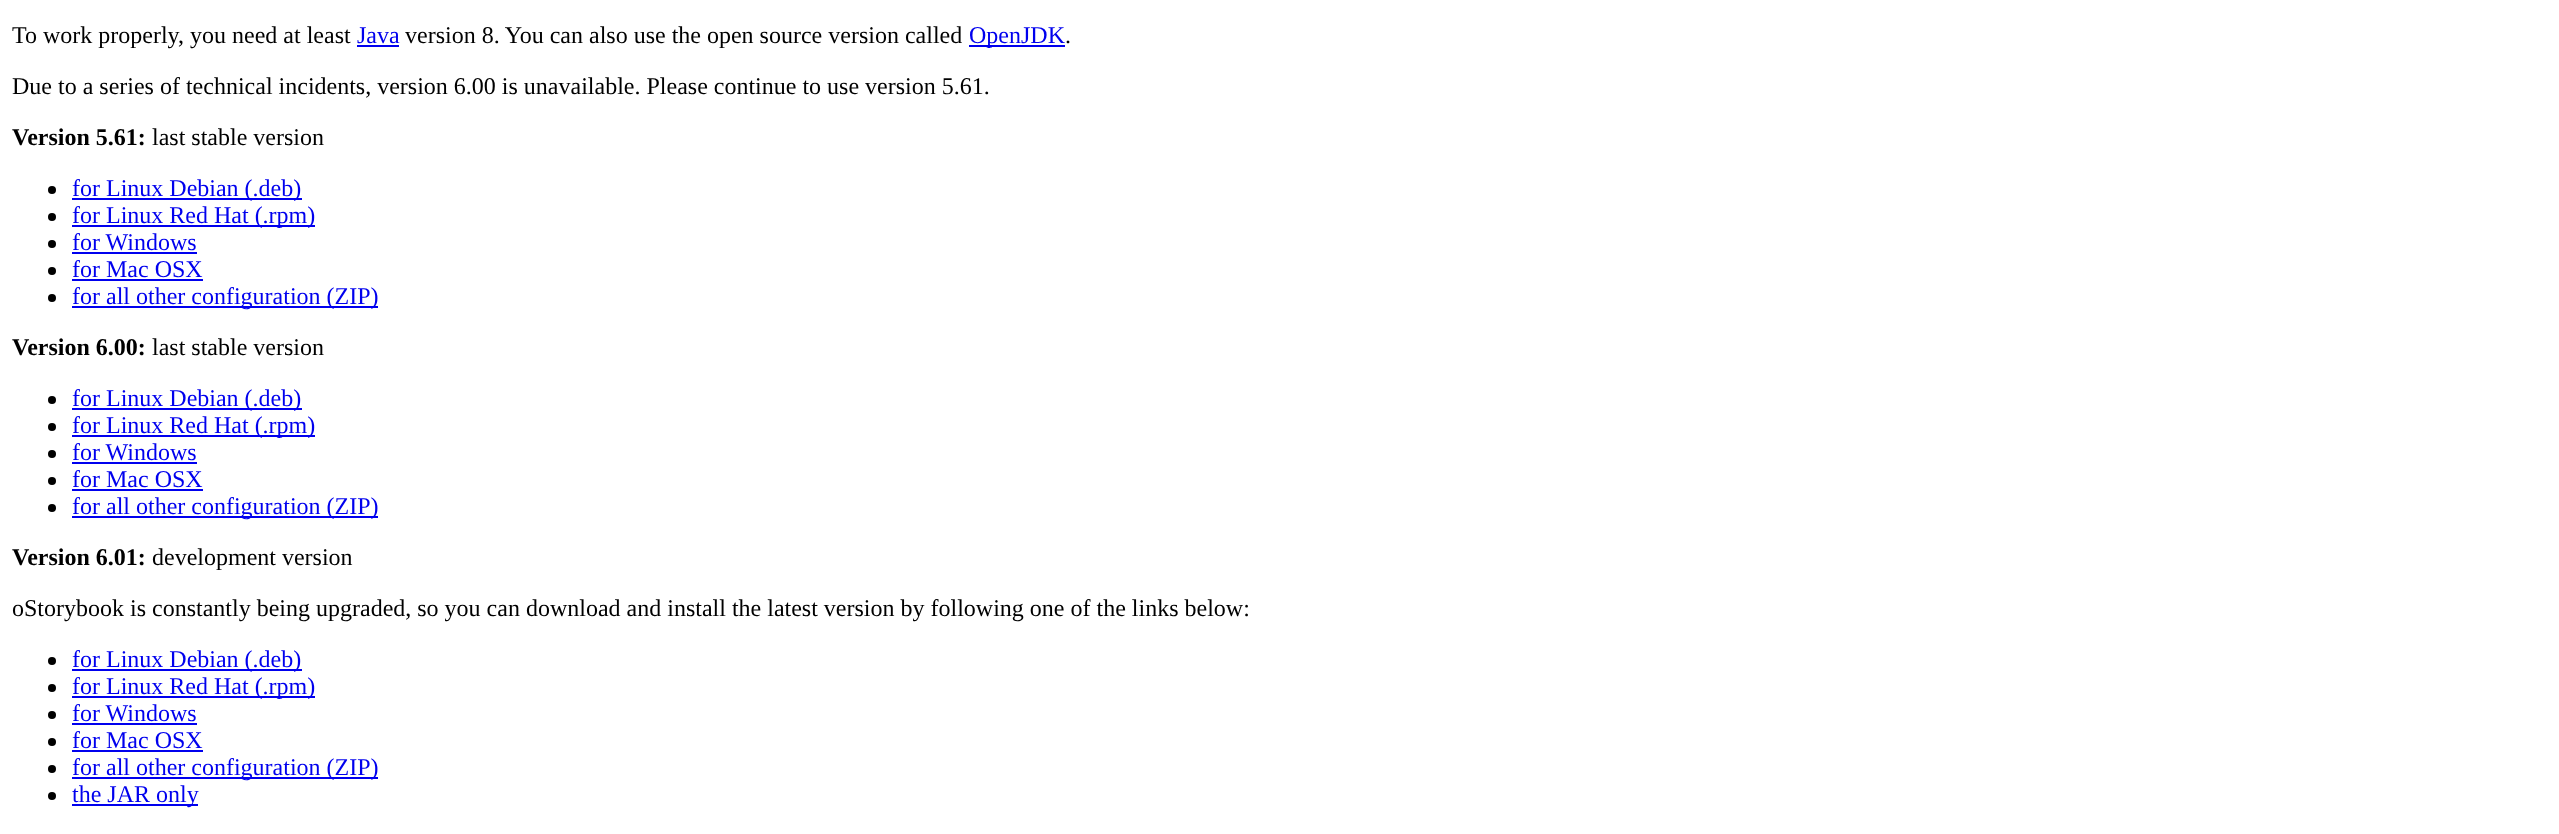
<svg xmlns="http://www.w3.org/2000/svg" width="2559" height="834">
<style>
.a{font:24px Liberation Serif;fill:#000}
.b{font:24px Liberation Serif;fill:#00e}
.c{font:bold 24px Liberation Serif;fill:#000}
</style>
<rect width="100%" height="100%" fill="#fff"/>
<path fill="#00e" d="M357 45h42v2H357z"/>
<path fill="#00e" d="M969 45h96v2H969z"/>
<circle fill="#000" cx="52" cy="190" r="4"/>
<path fill="#00e" d="M72 198h230v2H72z"/>
<circle fill="#000" cx="52" cy="217" r="4"/>
<path fill="#00e" d="M72 225h243v2H72z"/>
<circle fill="#000" cx="52" cy="244" r="4"/>
<path fill="#00e" d="M72 252h125v2H72z"/>
<circle fill="#000" cx="52" cy="271" r="4"/>
<path fill="#00e" d="M72 279h131v2H72z"/>
<circle fill="#000" cx="52" cy="298" r="4"/>
<path fill="#00e" d="M72 306h306v2H72z"/>
<circle fill="#000" cx="52" cy="400" r="4"/>
<path fill="#00e" d="M72 408h230v2H72z"/>
<circle fill="#000" cx="52" cy="427" r="4"/>
<path fill="#00e" d="M72 435h243v2H72z"/>
<circle fill="#000" cx="52" cy="454" r="4"/>
<path fill="#00e" d="M72 462h125v2H72z"/>
<circle fill="#000" cx="52" cy="481" r="4"/>
<path fill="#00e" d="M72 489h131v2H72z"/>
<circle fill="#000" cx="52" cy="508" r="4"/>
<path fill="#00e" d="M72 516h306v2H72z"/>
<circle fill="#000" cx="52" cy="661" r="4"/>
<path fill="#00e" d="M72 669h230v2H72z"/>
<circle fill="#000" cx="52" cy="688" r="4"/>
<path fill="#00e" d="M72 696h243v2H72z"/>
<circle fill="#000" cx="52" cy="715" r="4"/>
<path fill="#00e" d="M72 723h125v2H72z"/>
<circle fill="#000" cx="52" cy="742" r="4"/>
<path fill="#00e" d="M72 750h131v2H72z"/>
<circle fill="#000" cx="52" cy="769" r="4"/>
<path fill="#00e" d="M72 777h306v2H72z"/>
<circle fill="#000" cx="52" cy="796" r="4"/>
<path fill="#00e" d="M72 804h126v2H72z"/>
<text class="a" x="12" y="43">To work properly, you need at least</text>
<text class="b" x="357" y="43">Java</text>
<text class="a" x="405" y="43">version 8. You can also use the open source version called</text>
<text class="b" x="969" y="43">OpenJDK</text>
<text class="a" x="1065" y="43">.</text>
<text class="a" x="12" y="94">Due to a series of technical incidents, version 6.00 is unavailable. Please continue to use version 5.61.</text>
<text class="c" x="12" y="145">Version 5.61:</text>
<text class="a" x="152" y="145">last stable version</text>
<text class="b" x="72" y="196">for Linux Debian (.deb)</text>
<text class="b" x="72" y="223">for Linux Red Hat (.rpm)</text>
<text class="b" x="72" y="250">for Windows</text>
<text class="b" x="72" y="277">for Mac OSX</text>
<text class="b" x="72" y="304">for all other configuration (ZIP)</text>
<text class="c" x="12" y="355">Version 6.00:</text>
<text class="a" x="152" y="355">last stable version</text>
<text class="b" x="72" y="406">for Linux Debian (.deb)</text>
<text class="b" x="72" y="433">for Linux Red Hat (.rpm)</text>
<text class="b" x="72" y="460">for Windows</text>
<text class="b" x="72" y="487">for Mac OSX</text>
<text class="b" x="72" y="514">for all other configuration (ZIP)</text>
<text class="c" x="12" y="565">Version 6.01:</text>
<text class="a" x="152" y="565">development version</text>
<text class="a" x="12" y="616">oStorybook is constantly being upgraded, so you can download and install the latest version by following one of the links below:</text>
<text class="b" x="72" y="667">for Linux Debian (.deb)</text>
<text class="b" x="72" y="694">for Linux Red Hat (.rpm)</text>
<text class="b" x="72" y="721">for Windows</text>
<text class="b" x="72" y="748">for Mac OSX</text>
<text class="b" x="72" y="775">for all other configuration (ZIP)</text>
<text class="b" x="72" y="802">the JAR only</text>
</svg>
